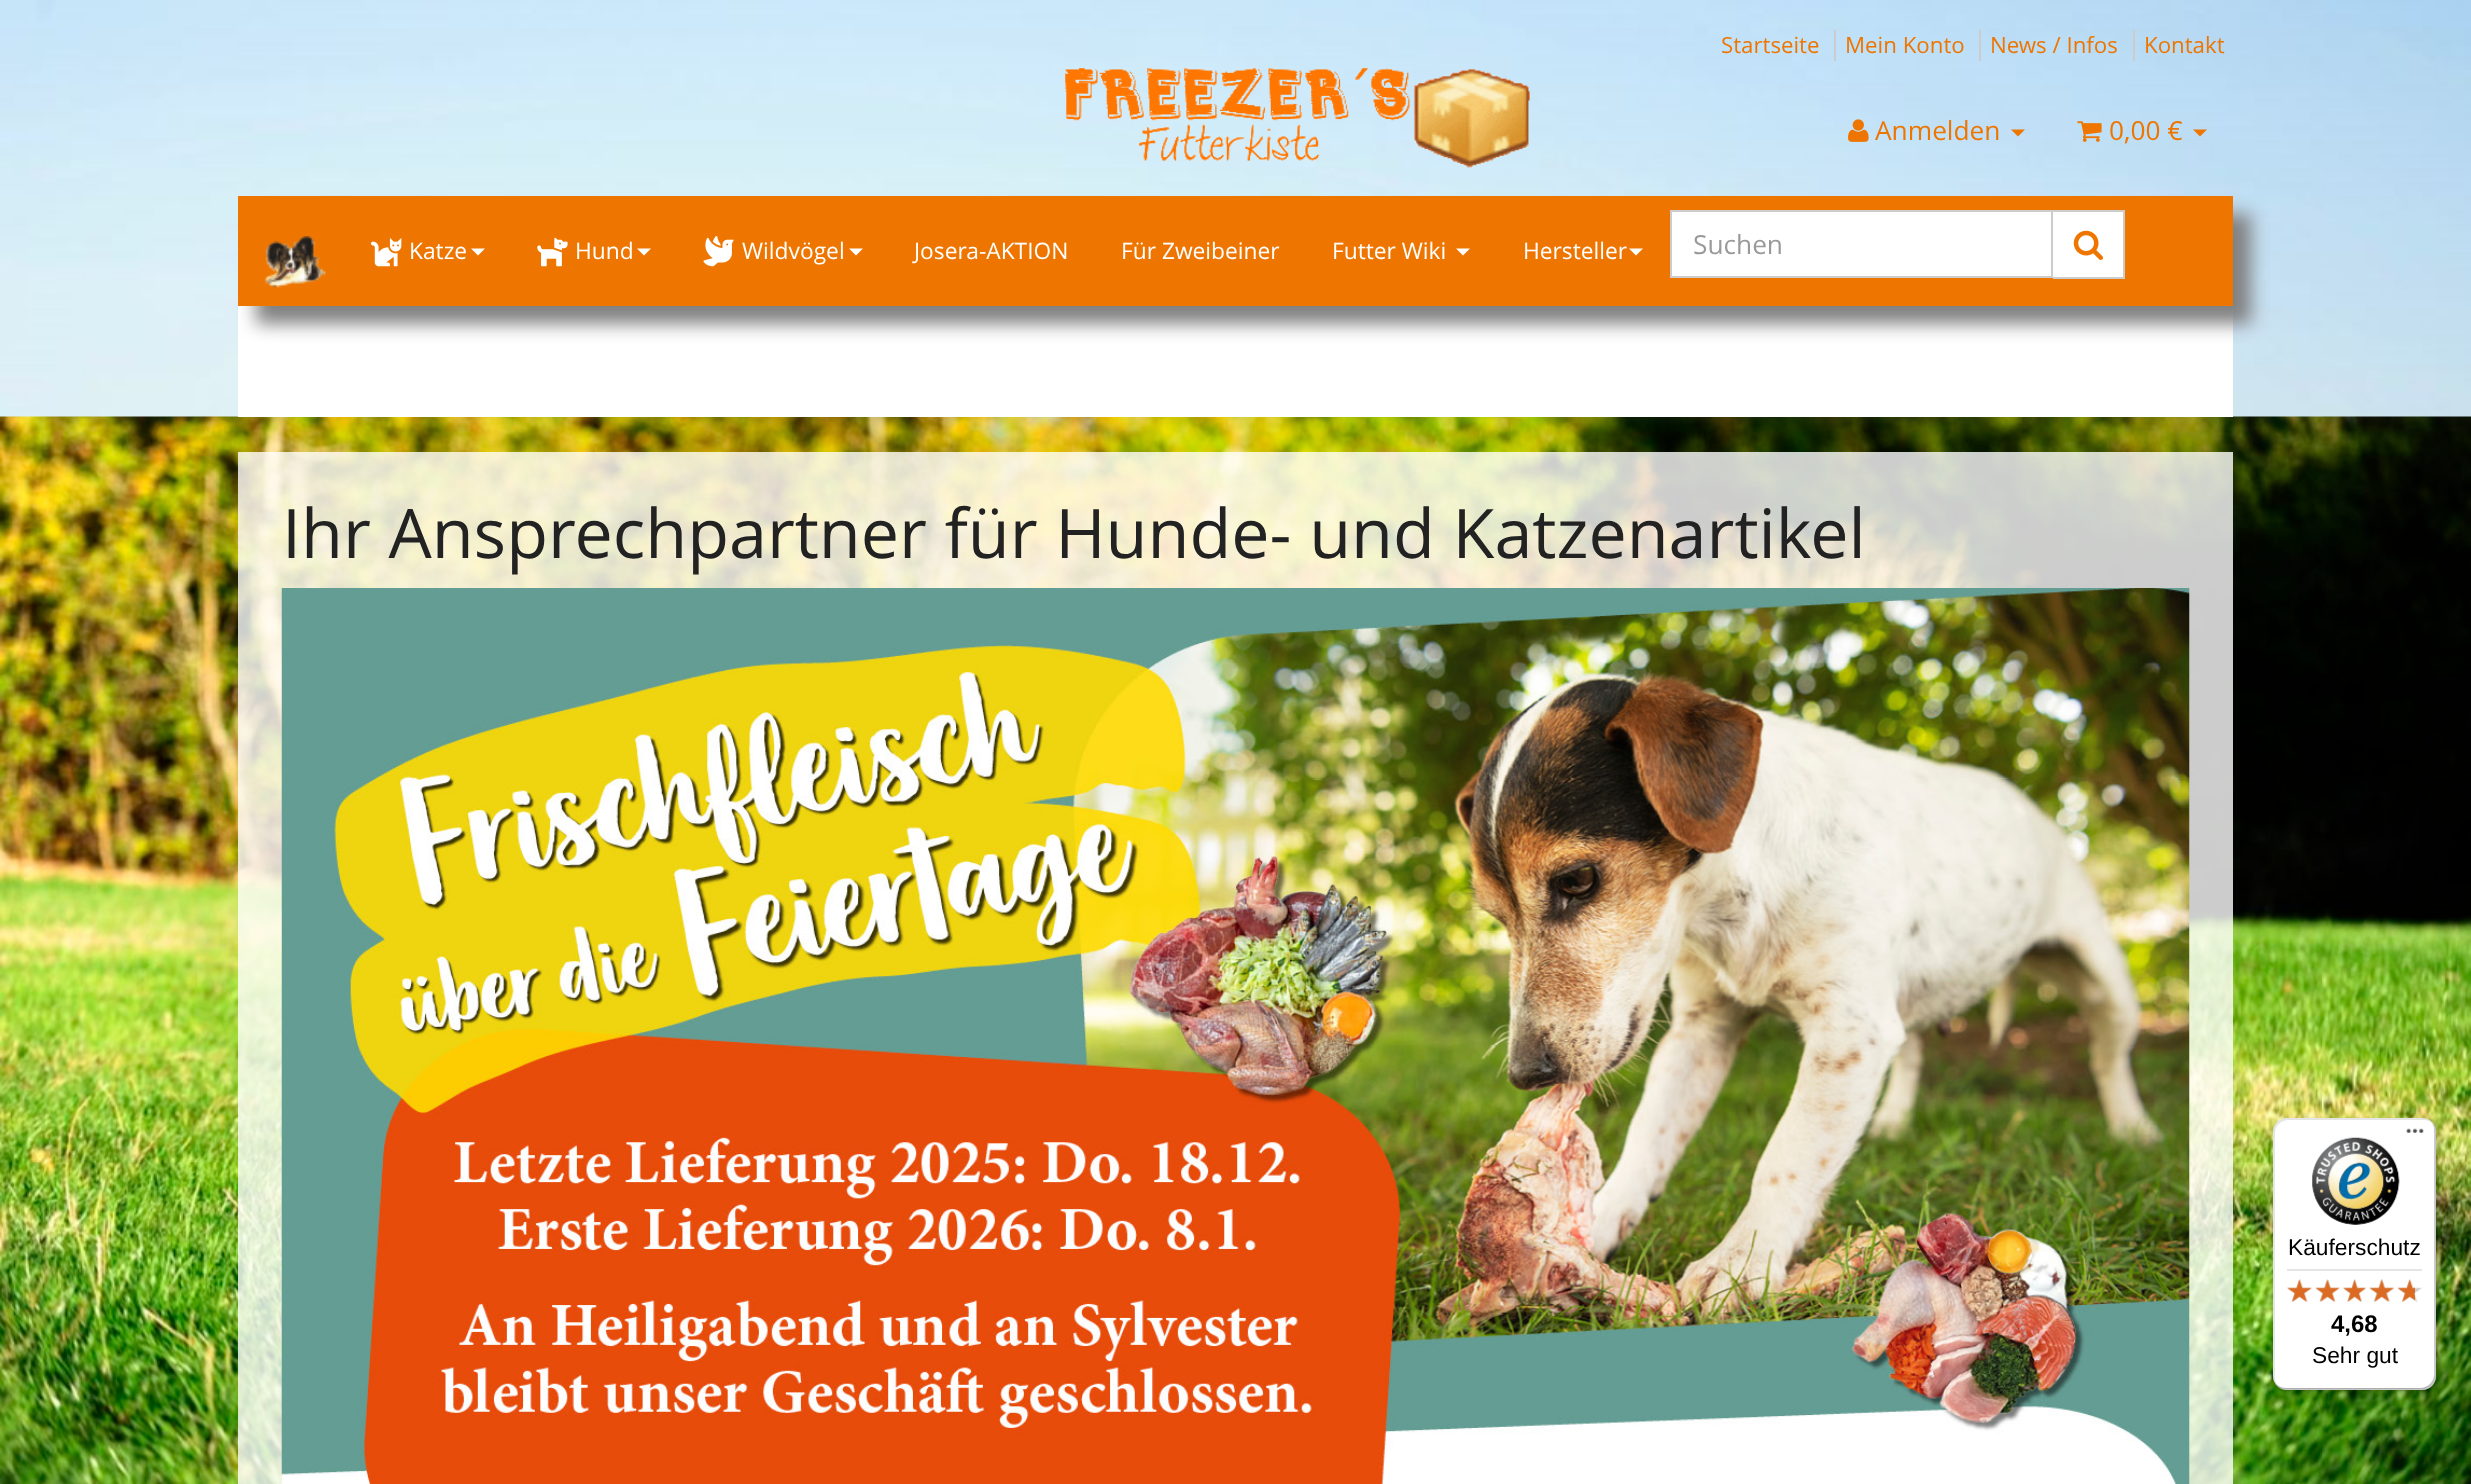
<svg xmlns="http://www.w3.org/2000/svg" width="2471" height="1484">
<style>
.a{font:22.25px Open Sans;fill:#ee7600}
.b{font:26.25px Open Sans;fill:#ee7600}
.c{font:22.75px Open Sans;fill:#fff}
.d{font:26.25px Open Sans;fill:#999}
.e{font:68.25px Open Sans;fill:#222}
.f{font:22.75px Liberation Sans;fill:#000}
.g{font:bold 24px Liberation Sans;fill:#000}
</style>
<rect width="100%" height="100%" fill="#fff"/>
<image href="11.png" x="0" y="416" width="2471" height="1068"/>
<path fill="#6a6a6a1a" filter="blur(4.5px)" d="M-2 -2h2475v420H-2z"/>
<image href="1.png" x="0" y="0" width="2471" height="417"/>
<path fill="#ccc" d="M1834 30h2v31H1834z"/>
<path fill="#ccc" d="M1979 30h2v31H1979z"/>
<path fill="#ccc" d="M2133 30h2v31H2133z"/>
<image href="2.png" x="1065" y="68" width="465" height="100"/>
<image href="3.png" x="1848" y="119" width="21" height="23"/>
<path fill="#ee7600" d="M2011 129.5h14l-7 7z"/>
<image href="4.png" x="2077" y="121" width="25" height="21"/>
<path fill="#ee7600" d="M2193 129.5h14l-7 7z"/>
<path fill="#fff" d="M238 306h1995v111H238z"/>
<path fill="#808080" filter="blur(9px)" d="M256 214h1995v110H256z"/>
<path fill="#ee7600" d="M238 196h1995v110H238z"/>
<image href="5.png" x="264" y="236" width="62" height="52"/>
<image href="6.png" x="371" y="238" width="31" height="29"/>
<path fill="#fff" d="M471 248.5h14l-7 7z"/>
<image href="7.png" x="537" y="237" width="31" height="30"/>
<path fill="#fff" d="M637 248.5h14l-7 7z"/>
<image href="8.png" x="703" y="236" width="31" height="31"/>
<path fill="#fff" d="M849 248.5h14l-7 7z"/>
<path fill="#fff" d="M1456 248.5h14l-7 7z"/>
<path fill="#fff" d="M1629 248.5h14l-7 7z"/>
<path fill="#fff" stroke="#ccc" stroke-width="2" d="M1671 211h381v66H1671z"/>
<path fill="#fff" d="M2053 212h70v65H2053z"/>
<path fill="#ccc" d="M2053 210h72v2H2053z"/>
<path fill="#ccc" d="M2123 210h2v68H2123z"/>
<path fill="#ccc" d="M2053 277h72v2H2053z"/>
<image href="9.png" x="2073" y="230" width="30" height="30"/>
<path fill="#ffffffcc" d="M238 452h1995v1032H238z"/>
<image href="10.png" x="281" y="588" width="1909" height="896"/>
<rect fill="#00000026" filter="blur(7px)" x="2279" y="1124" width="162" height="271" rx="14"/>
<rect fill="#00000026" filter="blur(2px)" x="2275" y="1120" width="163" height="271" rx="14"/>
<rect fill="#fff" x="2273" y="1118" width="163" height="272" rx="14"/>
<path fill="#0000001a" d="M2289 1120h135c3 0 7 1 9 4c-2-4-6-6-11-6h-135c-8 0-14 6-14 14v244c0 6 3 10 8 13c-4-3-6-7-6-12v-243c0-8 6-14 14-14z"/>
<path fill="#00000033" d="M2274 1381c2 5 7 9 13 9h135c8 0 14-6 14-14v-244c0-5-2-9-6-11c3 2 4 6 4 9v244c0 7-6 14-14 14h-134c-5 0-10-3-12-7z"/>
<path fill="#32323233" d="M2274 1382c3 5 7 8 13 8h135c8 0 14-6 14-14v-244c0-4-1-7-4-9c2 2 3 5 3 8v243c0 8-6 14-14 14h-135c-5 0-9-2-12-6z"/>
<path fill="#ffffff4d" d="M2275 1383c2 4 7 7 12 7h135c8 0 14-6 14-14v-244c0-5-2-9-5-11c2 3 4 6 4 10v244c0 7-6 14-14 14h-135c-4 0-9-3-11-6z"/>
<image href="12.png" x="2406" y="1128" width="18" height="5"/>
<image href="13.png" x="2312" y="1137" width="88" height="88"/>
<path fill="#e5e5e5" d="M2287 1269h135v2H2287z"/>
<image href="14.png" x="2287" y="1279" width="25" height="23"/>
<image href="15.png" x="2315" y="1279" width="25" height="23"/>
<image href="16.png" x="2343" y="1279" width="23" height="23"/>
<image href="17.png" x="2369" y="1279" width="25" height="23"/>
<image href="18.png" x="2398" y="1279" width="24" height="23"/>
<image href="19.png" x="2287" y="1279" width="25" height="23"/>
<image href="20.png" x="2315" y="1279" width="25" height="23"/>
<image href="21.png" x="2343" y="1279" width="23" height="23"/>
<image href="22.png" x="2369" y="1279" width="25" height="23"/>
<image href="23.png" x="2397" y="1279" width="18" height="23"/>
<text class="a" x="1721" y="53">Startseite</text>
<text class="a" x="1845" y="53">Mein Konto</text>
<text class="a" x="1990" y="53">News / Infos</text>
<text class="a" x="2144" y="53">Kontakt</text>
<text class="b" x="1875" y="140">Anmelden</text>
<text class="b" x="2109" y="140">0,00 €</text>
<text class="c" x="409" y="259">Katze</text>
<text class="c" x="575" y="259">Hund</text>
<text class="c" x="742" y="259">Wildvögel</text>
<text class="c" x="914" y="259">Josera-AKTION</text>
<text class="c" x="1121" y="259">Für Zweibeiner</text>
<text class="c" x="1332" y="259">Futter Wiki</text>
<text class="c" x="1523" y="259">Hersteller</text>
<text class="d" x="1693" y="254">Suchen</text>
<text class="e" x="282" y="558">Ihr Ansprechpartner für Hunde- und Katzenartikel</text>
<text class="f" x="2288" y="1255">Käuferschutz</text>
<text class="g" x="2331" y="1332">4,68</text>
<text class="f" x="2312" y="1363">Sehr gut</text>
</svg>
